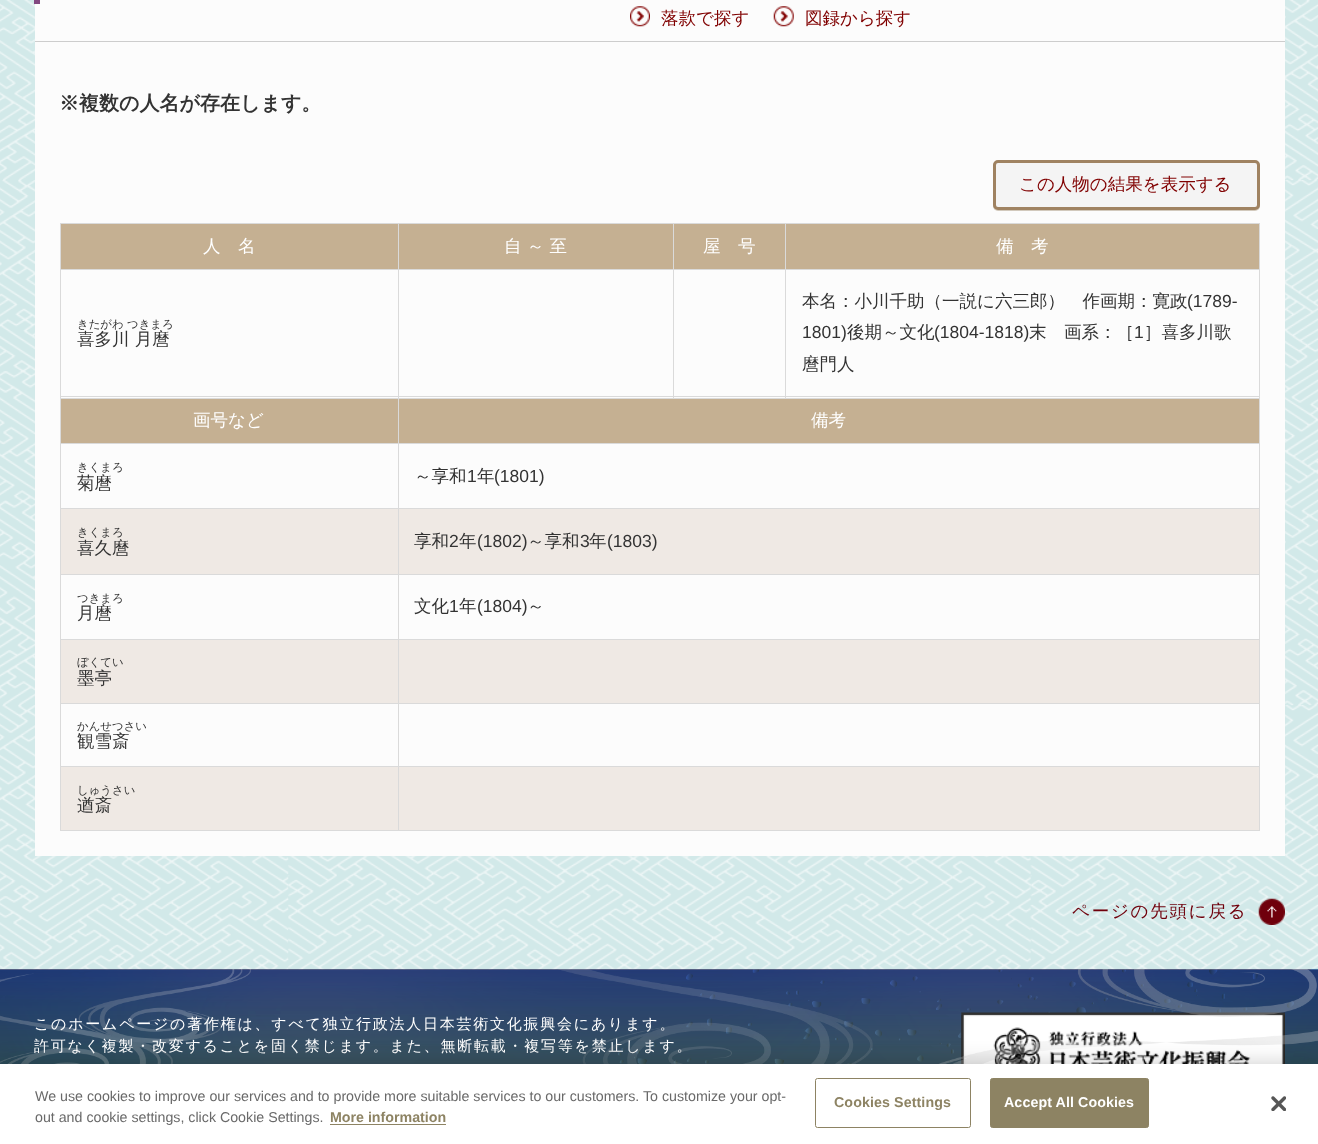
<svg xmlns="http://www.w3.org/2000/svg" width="1318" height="1144">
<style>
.a{font:500 17.5px WenQuanYi Zen Hei;fill:#800000}
.b{font:bold 20px WenQuanYi Zen Hei;fill:#333}
.c{font:500 17.5px WenQuanYi Zen Hei;fill:#fff}
.d{font:500 11.4px WenQuanYi Zen Hei;fill:#333}
.e{font:500 17.5px WenQuanYi Zen Hei;fill:#333}
.f{font:17.5px Liberation Sans;fill:#333}
.g{font:500 17.5px WenQuanYi Zen Hei;letter-spacing:1.75px;fill:#6f000c}
.h{font:500 15px WenQuanYi Zen Hei;letter-spacing:1.75px;fill:#fff}
.i{font:14.23px Liberation Sans;fill:#696969}
.j{font:bold 14.23px Liberation Sans;fill:#8d8363}
.k{font:bold 14.23px Liberation Sans;letter-spacing:0.1px;fill:#8d8363}
.l{font:bold 14.23px Liberation Sans;letter-spacing:0.1px;fill:#fff}
</style>
<rect width="100%" height="100%" fill="#fff"/>
<image href="1.png" x="0" y="0" width="1318" height="970"/>
<path fill="#fcfcfc" d="M35 0h1250v856H35z"/>
<path fill="#cdcdcd" d="M35 41h1250v1H35z"/>
<path fill="#824880" d="M34 0h6v4H34z"/>
<image href="2.png" x="630" y="6" width="20" height="21"/>
<image href="3.png" x="773" y="6" width="21" height="21"/>
<rect fill="#d2c9bc" filter="blur(0.5px)" x="993" y="161" width="267" height="50" rx="5"/>
<rect fill="#f4f4f4" stroke="#9f8261" stroke-width="3" x="994.5" y="161.5" width="264" height="47" rx="3.5"/>
<path fill="#c5b092" d="M61 224h337v45H61z"/>
<path fill="#dadada" d="M785 223h475v1H785z"/>
<path fill="#dadada" d="M785 269h475v1H785z"/>
<path fill="#dadada" d="M1259 269h1v129H1259z"/>
<path fill="#dadada" d="M785 396h475v1H785z"/>
<path fill="#dadada" d="M785 269h1v129H785z"/>
<path fill="#dadada" d="M673 269h113v1H673z"/>
<path fill="#dadada" d="M785 223h1v47H785z"/>
<path fill="#dadada" d="M673 223h113v1H673z"/>
<path fill="#dadada" d="M673 396h113v1H673z"/>
<path fill="#dadada" d="M673 269h1v129H673z"/>
<path fill="#dadada" d="M398 269h276v1H398z"/>
<path fill="#dadada" d="M673 223h1v47H673z"/>
<path fill="#dadada" d="M398 223h276v1H398z"/>
<path fill="#dadada" d="M398 396h276v1H398z"/>
<path fill="#dadada" d="M398 269h1v129H398z"/>
<path fill="#dadada" d="M60 269h339v1H60z"/>
<path fill="#dadada" d="M398 223h1v47H398z"/>
<path fill="#dadada" d="M60 223h339v1H60z"/>
<path fill="#dadada" d="M60 396h339v1H60z"/>
<path fill="#dadada" d="M60 269h1v129H60z"/>
<path fill="#dadada" d="M60 223h1v47H60z"/>
<path fill="#c5b092" d="M399 224h274v45H399z"/>
<path fill="#c5b092" d="M674 224h111v45H674z"/>
<path fill="#c5b092" d="M786 224h473v45H786z"/>
<path fill="#dadada" d="M1259 223h1v47H1259z"/>
<path fill="#c5b092" d="M61 399h337v44H61z"/>
<path fill="#dadada" d="M398 398h862v1H398z"/>
<path fill="#dadada" d="M398 443h862v1H398z"/>
<path fill="#dadada" d="M398 508h862v1H398z"/>
<path fill="#dadada" d="M398 574h862v1H398z"/>
<path fill="#dadada" d="M398 639h862v1H398z"/>
<path fill="#dadada" d="M398 703h862v1H398z"/>
<path fill="#dadada" d="M398 766h862v1H398z"/>
<path fill="#dadada" d="M1259 766h1v65H1259z"/>
<path fill="#dadada" d="M398 830h862v1H398z"/>
<path fill="#dadada" d="M398 766h1v65H398z"/>
<path fill="#dadada" d="M60 766h339v1H60z"/>
<path fill="#dadada" d="M398 703h1v65H398z"/>
<path fill="#dadada" d="M60 703h339v1H60z"/>
<path fill="#dadada" d="M398 639h1v65H398z"/>
<path fill="#dadada" d="M60 639h339v1H60z"/>
<path fill="#dadada" d="M398 574h1v66H398z"/>
<path fill="#dadada" d="M60 574h339v1H60z"/>
<path fill="#dadada" d="M398 508h1v67H398z"/>
<path fill="#dadada" d="M60 508h339v1H60z"/>
<path fill="#dadada" d="M398 443h1v66H398z"/>
<path fill="#dadada" d="M60 443h339v1H60z"/>
<path fill="#dadada" d="M398 398h1v46H398z"/>
<path fill="#dadada" d="M60 398h339v1H60z"/>
<path fill="#dadada" d="M60 830h339v1H60z"/>
<path fill="#dadada" d="M60 766h1v65H60z"/>
<path fill="#dadada" d="M60 703h1v65H60z"/>
<path fill="#dadada" d="M60 639h1v65H60z"/>
<path fill="#dadada" d="M60 574h1v66H60z"/>
<path fill="#dadada" d="M60 508h1v67H60z"/>
<path fill="#dadada" d="M60 443h1v66H60z"/>
<path fill="#dadada" d="M60 398h1v46H60z"/>
<path fill="#c5b092" d="M399 399h860v44H399z"/>
<path fill="#dadada" d="M1259 703h1v65H1259z"/>
<path fill="#dadada" d="M1259 639h1v65H1259z"/>
<path fill="#dadada" d="M1259 574h1v66H1259z"/>
<path fill="#dadada" d="M1259 508h1v67H1259z"/>
<path fill="#dadada" d="M1259 443h1v66H1259z"/>
<path fill="#dadada" d="M1259 398h1v46H1259z"/>
<path fill="#efe9e4" d="M61 509h337v65H61z"/>
<path fill="#efe9e4" d="M399 509h860v65H399z"/>
<path fill="#efe9e4" d="M61 640h337v63H61z"/>
<path fill="#efe9e4" d="M399 640h860v63H399z"/>
<path fill="#efe9e4" d="M61 767h337v63H61z"/>
<path fill="#efe9e4" d="M399 767h860v63H399z"/>
<image href="4.png" x="1258" y="898" width="27" height="27"/>
<image href="5.png" x="0" y="968" width="1318" height="96"/>
<image href="6.png" x="0" y="969" width="251" height="95"/>
<image href="8.png" x="961" y="1012" width="324" height="52"/>
<text class="a" x="661" y="24">落款で探す</text>
<text class="a" x="805" y="24">図録から探す</text>
<text class="b" x="59" y="110">※複数の人名が存在します。</text>
<text class="a" x="1019" y="190">この人物の結果を表示する</text>
<text class="c" x="203" y="252">人　名</text>
<text class="c" x="504" y="252">自 ～ 至</text>
<text class="c" x="703" y="252">屋　号</text>
<text class="c" x="996" y="252">備　考</text>
<text class="d" x="77" y="328">きたがわ つきまろ</text>
<text class="e" x="77" y="345">喜多川 月麿</text>
<text class="e" x="802" y="307">本名：小川千助（一説に六三郎）　作画期：寛政</text>
<text class="f" x="1187" y="307">(1789-</text>
<text class="f" x="802" y="338">1801)</text>
<text class="e" x="847" y="338">後期～文化</text>
<text class="f" x="934" y="338">(1804-1818)</text>
<text class="e" x="1029" y="338">末　画系：［</text>
<text class="f" x="1134" y="338">1</text>
<text class="e" x="1144" y="338">］喜多川歌</text>
<text class="e" x="802" y="370">麿門人</text>
<text class="c" x="193" y="426">画号など</text>
<text class="c" x="811" y="426">備考</text>
<text class="d" x="77" y="471">きくまろ</text>
<text class="e" x="77" y="489">菊麿</text>
<text class="e" x="414" y="482">～享和</text>
<text class="f" x="467" y="482">1</text>
<text class="e" x="477" y="482">年</text>
<text class="f" x="494" y="482">(1801)</text>
<text class="d" x="77" y="536">きくまろ</text>
<text class="e" x="77" y="554">喜久麿</text>
<text class="e" x="414" y="547">享和</text>
<text class="f" x="449" y="547">2</text>
<text class="e" x="459" y="547">年</text>
<text class="f" x="477" y="547">(1802)</text>
<text class="e" x="527" y="547">～享和</text>
<text class="f" x="580" y="547">3</text>
<text class="e" x="589" y="547">年</text>
<text class="f" x="607" y="547">(1803)</text>
<text class="d" x="77" y="602">つきまろ</text>
<text class="e" x="77" y="619">月麿</text>
<text class="e" x="414" y="612">文化</text>
<text class="f" x="449" y="612">1</text>
<text class="e" x="459" y="612">年</text>
<text class="f" x="477" y="612">(1804)</text>
<text class="e" x="527" y="612">～</text>
<text class="d" x="77" y="666">ぼくてい</text>
<text class="e" x="77" y="684">墨亭</text>
<text class="d" x="77" y="730">かんせつさい</text>
<text class="e" x="77" y="747">観雪斎</text>
<text class="d" x="77" y="794">しゅうさい</text>
<text class="e" x="77" y="811">遒斎</text>
<text class="g" x="1072" y="917">ページの先頭に戻る</text>
<text class="h" x="34" y="1029">このホームページの著作権は、すべて独立行政法人日本芸術文化振興会にあります。</text>
<text class="h" x="34" y="1051">許可なく複製・改変することを固く禁じます。また、無断転載・複写等を禁止します。</text>
<image href="7.png" x="558" y="969" width="760" height="95"/>
<path fill="#00000033" filter="blur(11px)" d="M0 1064h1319v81H0z"/>
<path fill="#fff" d="M0 1064h1318v80H0z"/>
<text class="i" x="35" y="1101">We use cookies to improve our services and to provide more suitable services to our customers. To customize your opt-</text>
<text class="i" x="35" y="1122">out and cookie settings, click Cookie Settings.</text>
<text class="j" x="330" y="1122">More information</text>
<path fill="#8d8363" d="M330 1124h116v1H330z"/>
<rect fill="none" stroke="#8d8363" x="815.5" y="1078.5" width="155" height="49" rx="2"/>
<text class="k" x="834" y="1107">Cookies Settings</text>
<rect fill="#8d8363" stroke="#8d8363" x="990.5" y="1078.5" width="158" height="49" rx="2"/>
<text class="l" x="1004" y="1107">Accept All Cookies</text>
<image href="9.png" x="1271" y="1096" width="15" height="15"/>
</svg>
